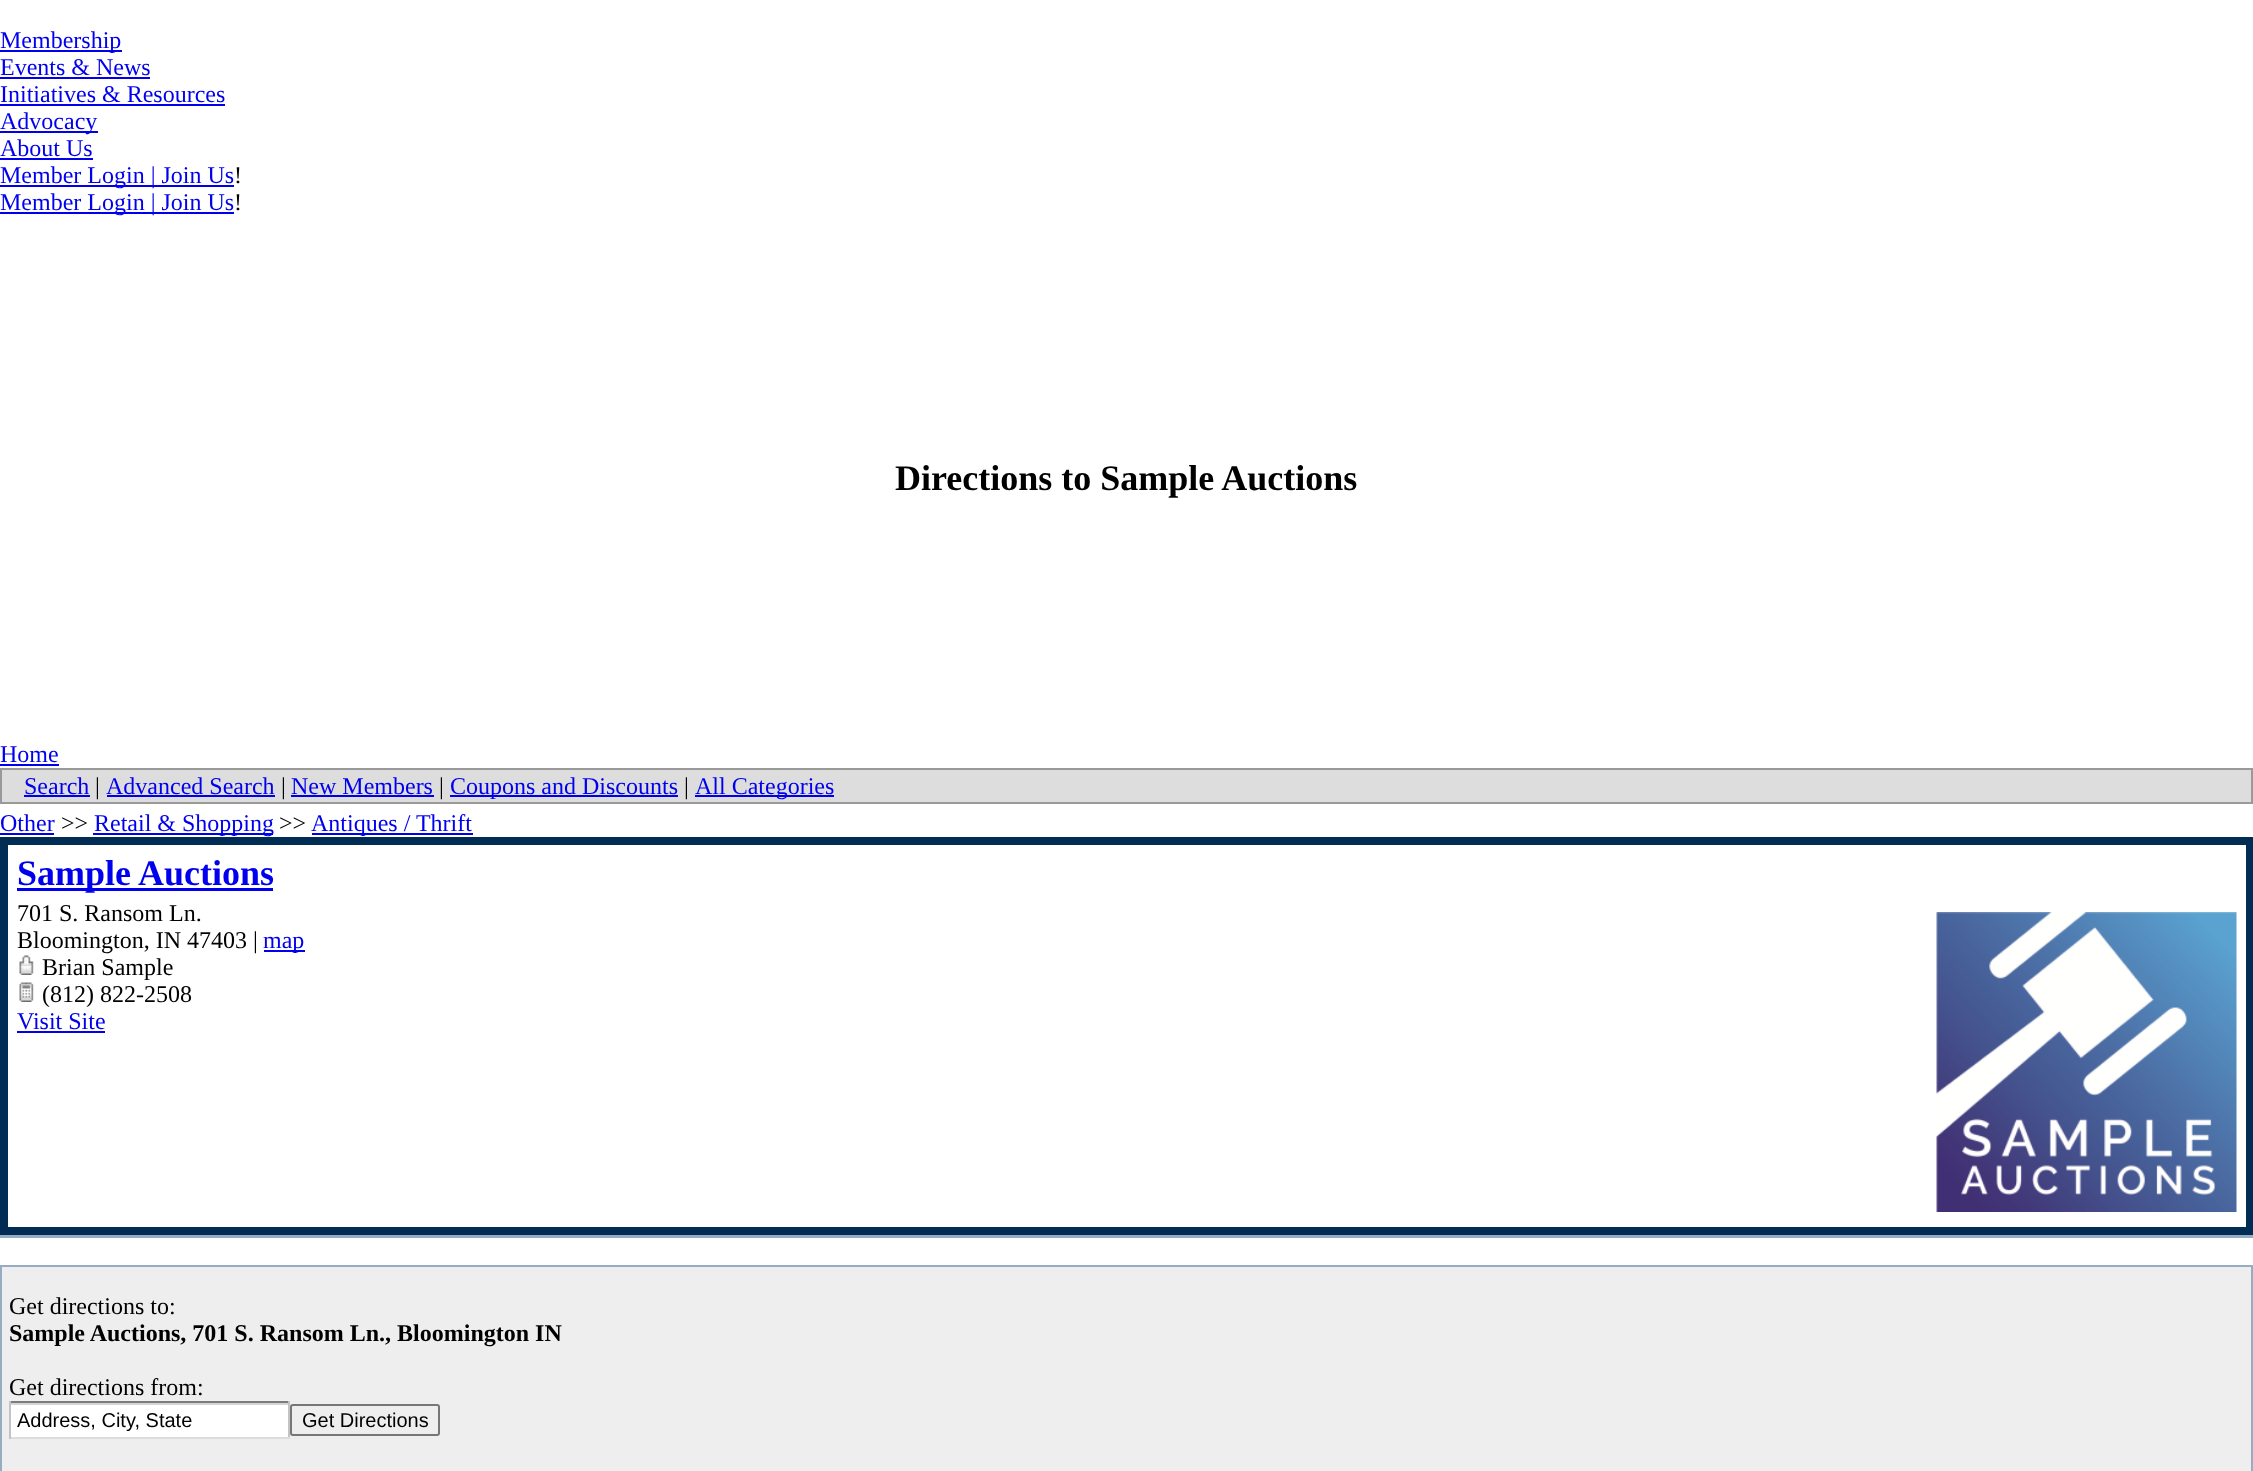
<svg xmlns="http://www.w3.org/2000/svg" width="2253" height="1471">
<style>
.a{font:24px Liberation Serif;fill:#00e}
.b{font:24px Liberation Serif;fill:#000}
.c{font:bold 36px Liberation Serif;fill:#000}
.d{font:bold 36px Liberation Serif;fill:#00e}
.e{font:bold 24px Liberation Serif;fill:#000}
.f{font:20px Liberation Sans;fill:#000}
</style>
<defs>
<clipPath id="clip1"><path d="M17 1409h265v22H17z"/></clipPath>
</defs>
<rect width="100%" height="100%" fill="#fff"/>
<path fill="#00e" d="M0 50h122v2H0z"/>
<path fill="#00e" d="M0 77h150v2H0z"/>
<path fill="#00e" d="M0 104h225v2H0z"/>
<path fill="#00e" d="M0 131h98v2H0z"/>
<path fill="#00e" d="M0 158h93v2H0z"/>
<path fill="#00e" d="M0 185h234v2H0z"/>
<path fill="#00e" d="M0 212h234v2H0z"/>
<path fill="#00e" d="M0 764h59v2H0z"/>
<path fill="#ddd" stroke="#999" stroke-width="2" d="M1 769h2251v34H1z"/>
<path fill="#00e" d="M24 795h66v2H24z"/>
<path fill="#00e" d="M107 795h168v2H107z"/>
<path fill="#00e" d="M291 795h143v2H291z"/>
<path fill="#00e" d="M450 795h228v2H450z"/>
<path fill="#00e" d="M695 795h139v2H695z"/>
<path fill="#00e" d="M0 833h54v2H0z"/>
<path fill="#00e" d="M93 833h180v2H93z"/>
<path fill="#00e" d="M312 833h161v2H312z"/>
<path fill="#012d54" d="M0 837h2253v398H0z"/>
<path fill="#fff" d="M8 845h2238v382H8z"/>
<path fill="#00e" d="M17 888h256v3H17z"/>
<path fill="#00e" d="M264 950h41v2H264z"/>
<image href="1.png" x="19" y="955" width="15" height="20"/>
<image href="2.png" x="19" y="982" width="15" height="20"/>
<path fill="#00e" d="M17 1031h88v2H17z"/>
<image href="3.png" x="1936" y="912" width="301" height="300"/>
<path fill="#96acc3" d="M0 1235h2253v3H0z"/>
<path fill="#eee" stroke="#96acc3" stroke-width="2" d="M1 1266h2251v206H1z"/>
<path fill="#fff" d="M11 1405h277v32H11z"/>
<path fill="#d5d5d5" d="M9 1403h281v2H9z"/>
<path fill="#7c7c7c" d="M9 1401h281v2H9z"/>
<path fill="#c3c3c3" d="M288 1401h2v38H288z"/>
<path fill="#ddd" d="M9 1437h281v2H9z"/>
<path fill="#c3c3c3" d="M9 1401h2v38H9z"/>
<rect fill="none" stroke="#767676" stroke-width="2" x="291" y="1405" width="148" height="30" rx="2"/>
<text class="a" x="0" y="48">Membership</text>
<text class="a" x="0" y="75">Events &amp; News</text>
<text class="a" x="0" y="102">Initiatives &amp; Resources</text>
<text class="a" x="0" y="129">Advocacy</text>
<text class="a" x="0" y="156">About Us</text>
<text class="a" x="0" y="183">Member Login | Join Us</text>
<text class="b" x="234" y="183">!</text>
<text class="a" x="0" y="210">Member Login | Join Us</text>
<text class="b" x="234" y="210">!</text>
<text class="c" x="895" y="490">Directions to Sample Auctions</text>
<text class="a" x="0" y="762">Home</text>
<text class="a" x="24" y="794">Search</text>
<text class="b" x="95" y="794">|</text>
<text class="a" x="106" y="794">Advanced Search</text>
<text class="b" x="281" y="794">|</text>
<text class="a" x="291" y="794">New Members</text>
<text class="b" x="439" y="794">|</text>
<text class="a" x="450" y="794">Coupons and Discounts</text>
<text class="b" x="684" y="794">|</text>
<text class="a" x="695" y="794">All Categories</text>
<text class="a" x="0" y="831">Other</text>
<text class="b" x="61" y="831">&gt;&gt;</text>
<text class="a" x="94" y="831">Retail &amp; Shopping</text>
<text class="b" x="279" y="831">&gt;&gt;</text>
<text class="a" x="311" y="831">Antiques / Thrift</text>
<text class="d" x="17" y="885">Sample Auctions</text>
<text class="b" x="17" y="921">701 S. Ransom Ln.</text>
<text class="b" x="17" y="948">Bloomington, IN 47403 |</text>
<text class="a" x="263" y="948">map</text>
<text class="b" x="42" y="975">Brian Sample</text>
<text class="b" x="42" y="1002">(812) 822-2508</text>
<text class="a" x="17" y="1029">Visit Site</text>
<text class="b" x="9" y="1314">Get directions to:</text>
<text class="e" x="9" y="1341">Sample Auctions, 701 S. Ransom Ln., Bloomington IN</text>
<text class="b" x="9" y="1395">Get directions from:</text>
<g clip-path="url(#clip1)">
<text class="f" x="17" y="1427">Address, City, State</text>
</g>
<text class="f" x="302" y="1427">Get Directions</text>
</svg>
